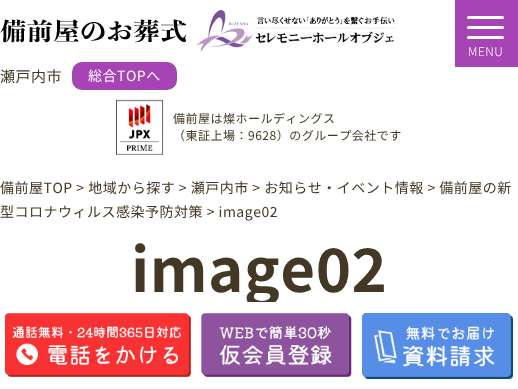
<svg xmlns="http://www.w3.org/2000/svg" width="518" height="389">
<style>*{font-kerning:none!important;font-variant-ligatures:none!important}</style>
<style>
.a{font:300 12px Noto Sans JP;letter-spacing:0.5px;fill:#fff}
.b{font:15px Noto Sans JP;letter-spacing:0.5px;fill:#433725}
.c{font:14px Noto Sans JP;letter-spacing:0.5px;fill:#fff}
.d{font:12px Noto Sans JP;letter-spacing:0.5px;fill:#433725}
.e{font:14px Noto Sans JP;letter-spacing:0.5px;fill:#433725}
.f{font:bold 60px Noto Sans JP;letter-spacing:0.5px;fill:#433725}
</style>
<rect width="100%" height="100%" fill="#fff"/>
<path fill="#a644b5" d="M455 0h63v67H455z"/>
<rect fill="#fff" x="467" y="16" width="37" height="3" rx="1.5"/>
<rect fill="#fff" x="467" y="26" width="37" height="3" rx="1.5"/>
<rect fill="#fff" x="467" y="36" width="37" height="3" rx="1.5"/>
<image href="1.png" x="0" y="19" width="186" height="24"/>
<image href="2.png" x="196" y="10" width="200" height="42"/>
<rect fill="#a644b5" x="72" y="62" width="105" height="28" rx="10"/>
<image href="3.png" x="116" y="99" width="48" height="56"/>
<image href="4.png" x="5" y="313" width="186" height="64"/>
<image href="5.png" x="201" y="313" width="151" height="64"/>
<image href="6.png" x="362" y="313" width="151" height="66"/>
<text class="a" x="468" y="56">MENU</text>
<text class="b" x="0" y="82">瀬戸内市</text>
<text class="c" x="88" y="81">総合TOPへ</text>
<text class="d" x="173" y="123">備前屋は燦ホールディングス</text>
<text class="d" x="173" y="140">（東証上場：9628）のグループ会社です</text>
<text class="e" x="0" y="193">備前屋TOP &gt; 地域から探す &gt; 瀬戸内市 &gt; お知らせ・イベント情報 &gt; 備前屋の新</text>
<text class="e" x="0" y="217">型コロナウィルス感染予防対策 &gt; image02</text>
<text class="f" x="131" y="292">image02</text>
<path fill="#fff" d="M247 302h28v5H247z"/>
</svg>
